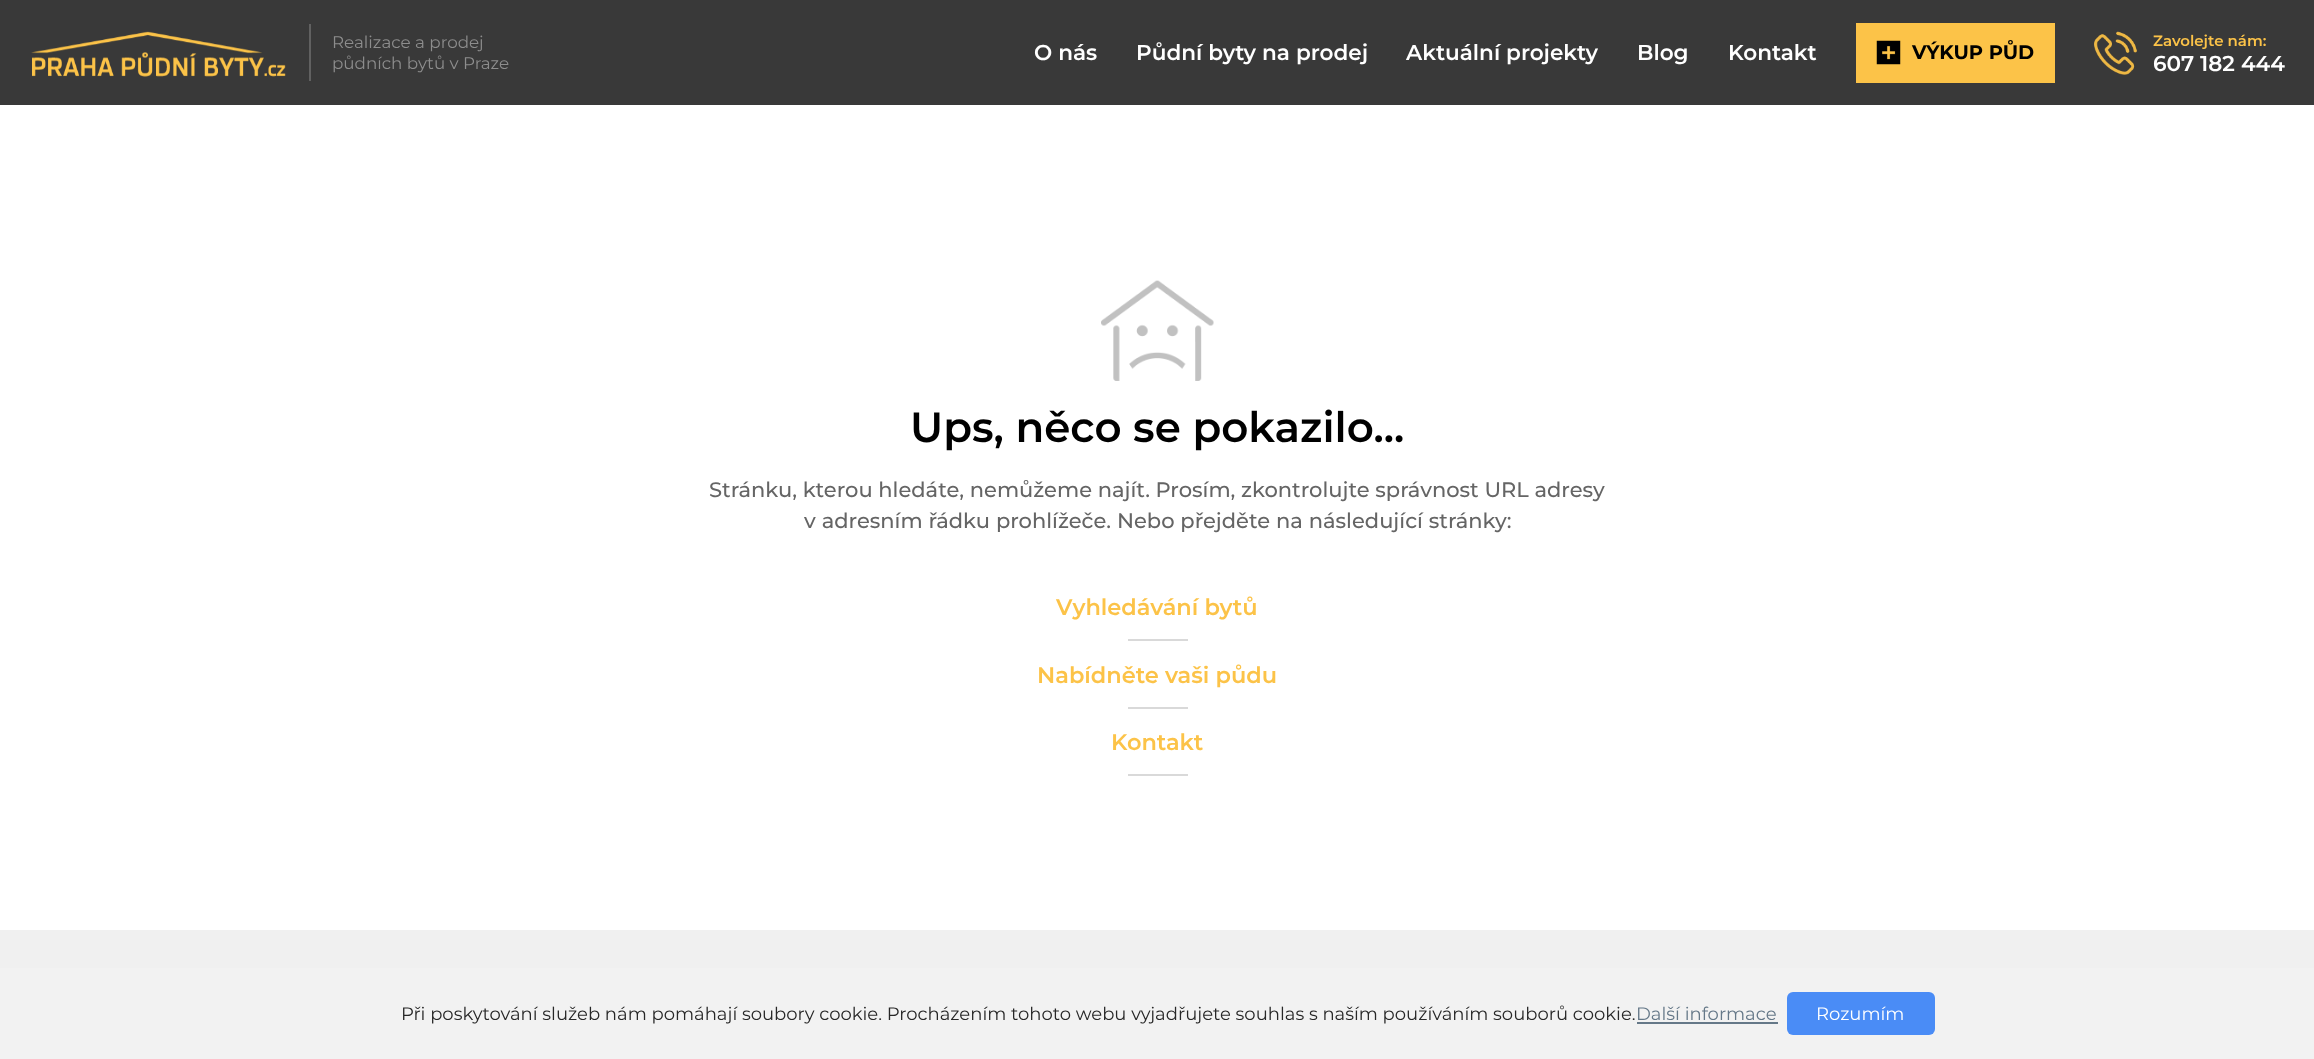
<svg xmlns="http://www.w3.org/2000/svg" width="2314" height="1059">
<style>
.a{font:16.75px Montserrat;fill:#8d8d8d}
.b{font:600 21.6px Montserrat;fill:#fff}
.c{font:bold 19.5px Montserrat;fill:#000}
.d{font:600 15px Montserrat;fill:#fcc348}
.e{font:600 42px Montserrat;fill:#000}
.f{font:500 21px Montserrat;fill:#656565}
.g{font:600 22.5px Montserrat;fill:#fcc348}
.h{font:18px Montserrat;fill:#272727}
.i{font:18px Montserrat;fill:#657888}
.j{font:18px Montserrat;fill:#fff}
</style>
<rect width="100%" height="100%" fill="#fff"/>
<path fill="#393939" d="M0 0h2314v105H0z"/>
<image href="1.png" x="31" y="31" width="255" height="46"/>
<path fill="#616161" d="M309 24h2v57H309z"/>
<path fill="#fcc348" d="M1856 23h199v60H1856z"/>
<image href="2.png" x="1876" y="40" width="25" height="25"/>
<image href="3.png" x="2094" y="31" width="43" height="44"/>
<image href="4.png" x="1101" y="280" width="113" height="101"/>
<path fill="#d9d9d9" d="M1128 639h60v2H1128z"/>
<path fill="#d9d9d9" d="M1128 707h60v2H1128z"/>
<path fill="#d9d9d9" d="M1128 774h60v2H1128z"/>
<image href="5.png" x="0" y="930" width="2314" height="38"/>
<path fill="#f2f2f2" d="M0 968h2314v91H0z"/>
<path fill="#657888" d="M1637 1022h141v2H1637z"/>
<rect fill="#4a8cf6" x="1787" y="992" width="148" height="43" rx="6"/>
<text class="a" x="332" y="48">Realizace a prodej</text>
<text class="a" x="332" y="69">půdních bytů v Praze</text>
<text class="b" x="1034" y="60">O nás</text>
<text class="b" x="1136" y="60">Půdní byty na prodej</text>
<text class="b" x="1406" y="60">Aktuální projekty</text>
<text class="b" x="1637" y="60">Blog</text>
<text class="b" x="1728" y="60">Kontakt</text>
<text class="c" x="1912" y="59">VÝKUP PŮD</text>
<text class="d" x="2153" y="46">Zavolejte nám:</text>
<text class="b" x="2153" y="71">607 182 444</text>
<text class="e" x="910" y="442">Ups, něco se pokazilo...</text>
<text class="f" x="709" y="497">Stránku, kterou hledáte, nemůžeme najít. Prosím, zkontrolujte správnost URL adresy</text>
<text class="f" x="804" y="528" word-spacing="0.25">v adresním řádku prohlížeče. Nebo přejděte na následující stránky:</text>
<text class="g" x="1056" y="615">Vyhledávání bytů</text>
<text class="g" x="1037" y="683">Nabídněte vaši půdu</text>
<text class="g" x="1111" y="750">Kontakt</text>
<text class="h" x="401" y="1020">Při poskytování služeb nám pomáhají soubory cookie. Procházením tohoto webu vyjadřujete souhlas s naším používáním souborů cookie.</text>
<text class="i" x="1636" y="1020">Další informace</text>
<text class="j" x="1816" y="1020">Rozumím</text>
</svg>
